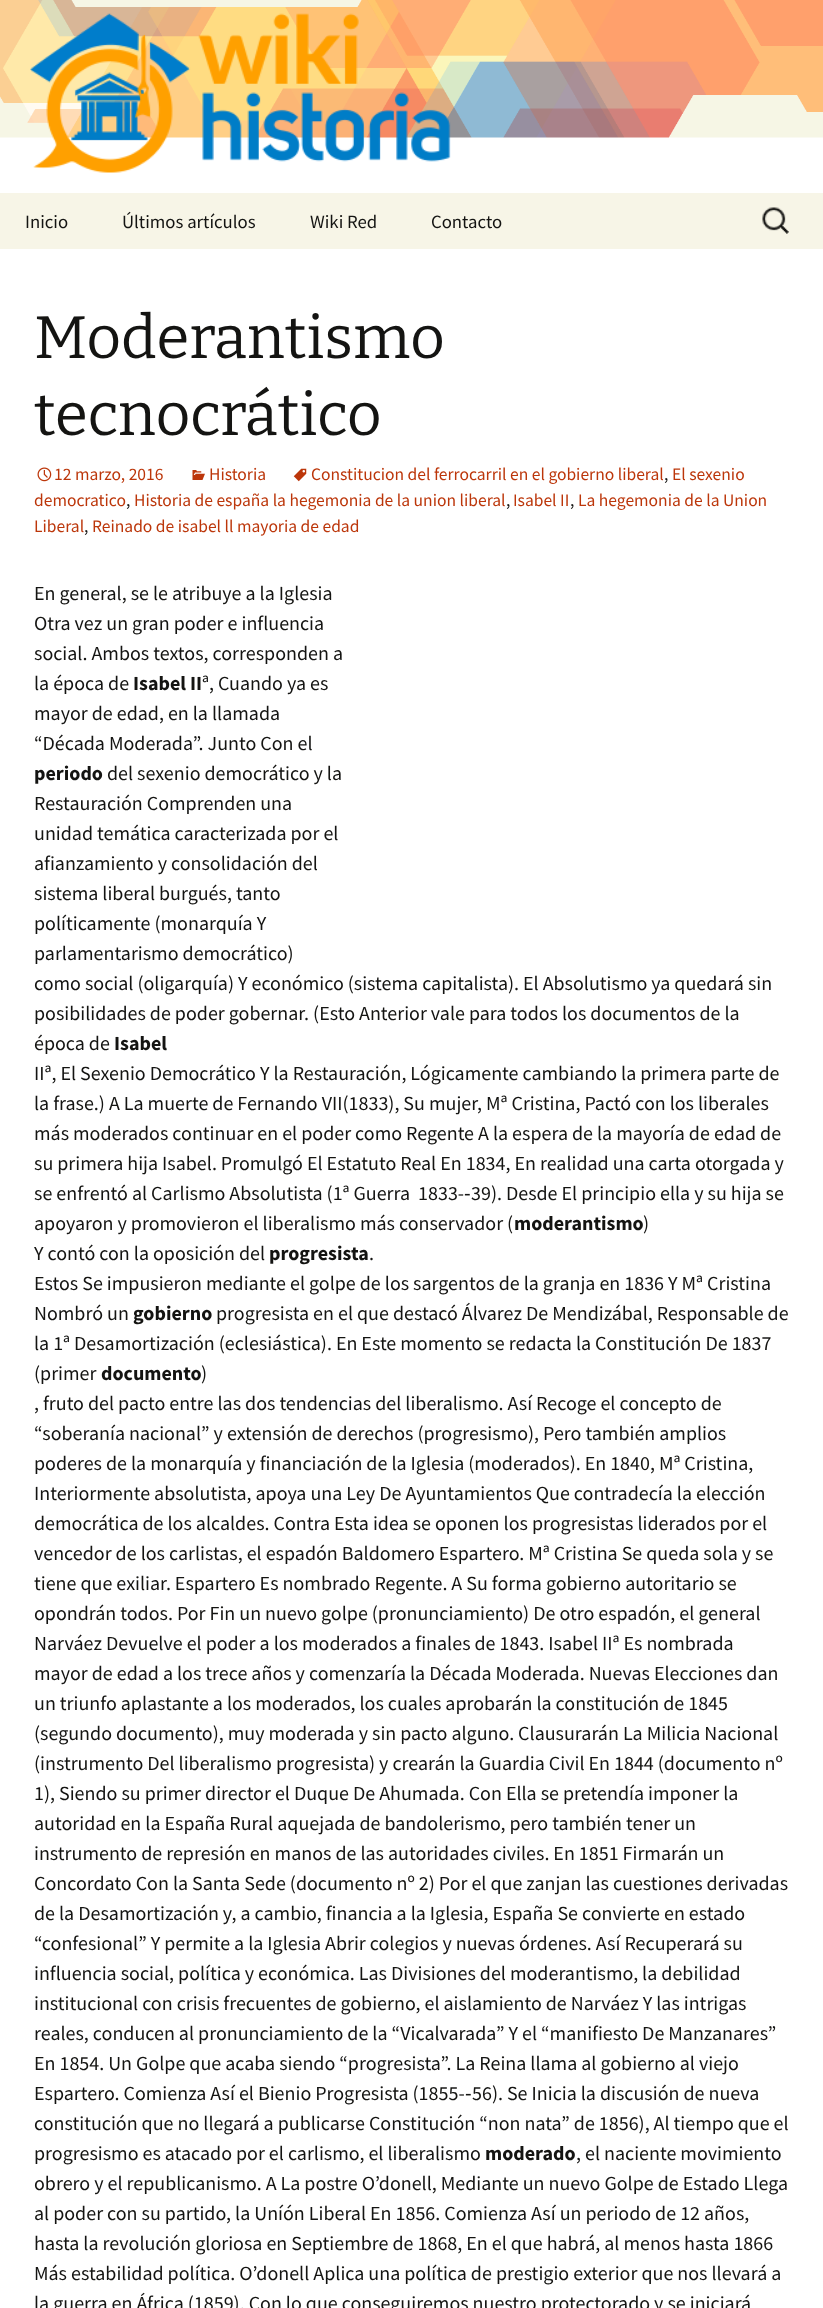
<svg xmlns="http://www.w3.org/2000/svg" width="823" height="2308">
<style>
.a{font:18.75px Source Sans Pro;fill:#141412}
.b{font:100 60px Bitter;fill:#141412}
.c{font:17.5px Source Sans Pro;fill:#bc360a}
.d{font:17.5px Source Sans Pro;fill:#141412}
.e{font:20px Source Sans Pro;fill:#141412}
.f{font:bold 20px Source Sans Pro;fill:#141412}
.g{font:20px Liberation Sans;fill:#141412}
</style>
<rect width="100%" height="100%" fill="#fff"/>
<image href="1.png" x="0" y="0" width="823" height="138"/>
<image href="2.png" x="30" y="13" width="421" height="160"/>
<path fill="#f7f5e7" d="M0 193h823v56H0z"/>
<image href="3.png" x="762" y="207" width="27" height="27"/>
<image href="4.png" x="293" y="468" width="14" height="14"/>
<image href="5.png" x="37" y="467" width="15" height="15"/>
<image href="6.png" x="192" y="470" width="13" height="10"/>
<text class="a" x="25" y="228">Inicio</text>
<text class="a" x="122" y="228">Últimos artículos</text>
<text class="a" x="310" y="228">Wiki Red</text>
<text class="a" x="431" y="228">Contacto</text>
<text class="b" x="34" y="358">Moderantismo</text>
<text class="b" x="34" y="435">tecnocrático</text>
<text class="c" x="311" y="480">Constitucion del ferrocarril en el gobierno liberal</text>
<text class="d" x="664" y="480">,</text>
<text class="c" x="672" y="480">El sexenio</text>
<text class="c" x="34" y="506">democratico</text>
<text class="d" x="126" y="506">,</text>
<text class="c" x="134" y="506">Historia de españa la hegemonia de la union liberal</text>
<text class="d" x="506" y="506">,</text>
<text class="c" x="513" y="506">Isabel II</text>
<text class="d" x="570" y="506">,</text>
<text class="c" x="578" y="506">La hegemonia de la Union</text>
<text class="c" x="34" y="532">Liberal</text>
<text class="d" x="84" y="532">,</text>
<text class="c" x="92" y="532">Reinado de isabel ll mayoria de edad</text>
<text class="c" x="54" y="480">12 marzo, 2016</text>
<text class="c" x="209" y="480">Historia</text>
<text class="e" x="34" y="600">En general, se le atribuye a la Iglesia</text>
<text class="e" x="34" y="630">Otra vez un gran poder e influencia</text>
<text class="e" x="34" y="660">social. Ambos textos, corresponden a</text>
<text class="e" x="34" y="690">la época de</text>
<text class="f" x="133" y="690">Isabel II</text>
<text class="e" x="202" y="690">ª, Cuando ya es</text>
<text class="e" x="34" y="720">mayor de edad, en la llamada</text>
<text class="e" x="34" y="750">“Década Moderada”. Junto Con el</text>
<text class="f" x="34" y="780">periodo</text>
<text class="e" x="107" y="780">del sexenio democrático y la</text>
<text class="e" x="34" y="810">Restauración Comprenden una</text>
<text class="e" x="34" y="840">unidad temática caracterizada por el</text>
<text class="e" x="34" y="870">afianzamiento y consolidación del</text>
<text class="e" x="34" y="900">sistema liberal burgués, tanto</text>
<text class="e" x="34" y="930">políticamente (monarquía Y</text>
<text class="e" x="34" y="960">parlamentarismo democrático)</text>
<text class="e" x="34" y="990">como social (oligarquía) Y económico (sistema capitalista). El Absolutismo ya quedará sin</text>
<text class="e" x="34" y="1020">posibilidades de poder gobernar. (Esto Anterior vale para todos los documentos de la</text>
<text class="e" x="34" y="1050">época de</text>
<text class="f" x="114" y="1050">Isabel</text>
<text class="e" x="34" y="1080">IIª, El Sexenio Democrático Y la Restauración, Lógicamente cambiando la primera parte de</text>
<text class="e" x="34" y="1110">la frase.) A La muerte de Fernando VII(1833), Su mujer, Mª Cristina, Pactó con los liberales</text>
<text class="e" x="34" y="1140">más moderados continuar en el poder como Regente A la espera de la mayoría de edad de</text>
<text class="e" x="34" y="1170">su primera hija Isabel. Promulgó El Estatuto Real En 1834, En realidad una carta otorgada y</text>
<text class="e" xml:space="preserve" x="34" y="1200">se enfrentó al Carlismo Absolutista (1ª Guerra  1833-</text>
<text class="g" x="464" y="1200">‐</text>
<text class="e" x="471" y="1200">39). Desde El principio ella y su hija se</text>
<text class="e" x="34" y="1230">apoyaron y promovieron el liberalismo más conservador (</text>
<text class="f" x="514" y="1230">moderantismo</text>
<text class="e" x="643" y="1230">)</text>
<text class="e" x="34" y="1260">Y contó con la oposición del</text>
<text class="f" x="269" y="1260">progresista</text>
<text class="e" x="369" y="1260">.</text>
<text class="e" x="34" y="1290">Estos Se impusieron mediante el golpe de los sargentos de la granja en 1836 Y Mª Cristina</text>
<text class="e" x="34" y="1320">Nombró un</text>
<text class="f" x="133" y="1320">gobierno</text>
<text class="e" x="216" y="1320">progresista en el que destacó Álvarez De Mendizábal, Responsable de</text>
<text class="e" x="34" y="1350">la 1ª Desamortización (eclesiástica). En Este momento se redacta la Constitución De 1837</text>
<text class="e" x="34" y="1380">(primer</text>
<text class="f" x="101" y="1380">documento</text>
<text class="e" x="201" y="1380">)</text>
<text class="e" x="34" y="1410">, fruto del pacto entre las dos tendencias del liberalismo. Así Recoge el concepto de</text>
<text class="e" x="34" y="1440">“soberanía nacional” y extensión de derechos (progresismo), Pero también amplios</text>
<text class="e" x="34" y="1470">poderes de la monarquía y financiación de la Iglesia (moderados). En 1840, Mª Cristina,</text>
<text class="e" x="34" y="1500">Interiormente absolutista, apoya una Ley De Ayuntamientos Que contradecía la elección</text>
<text class="e" x="34" y="1530">democrática de los alcaldes. Contra Esta idea se oponen los progresistas liderados por el</text>
<text class="e" x="34" y="1560">vencedor de los carlistas, el espadón Baldomero Espartero. Mª Cristina Se queda sola y se</text>
<text class="e" x="34" y="1590">tiene que exiliar. Espartero Es nombrado Regente. A Su forma gobierno autoritario se</text>
<text class="e" x="34" y="1620">opondrán todos. Por Fin un nuevo golpe (pronunciamiento) De otro espadón, el general</text>
<text class="e" x="34" y="1650">Narváez Devuelve el poder a los moderados a finales de 1843. Isabel IIª Es nombrada</text>
<text class="e" x="34" y="1680">mayor de edad a los trece años y comenzaría la Década Moderada. Nuevas Elecciones dan</text>
<text class="e" x="34" y="1710">un triunfo aplastante a los moderados, los cuales aprobarán la constitución de 1845</text>
<text class="e" x="34" y="1740">(segundo documento), muy moderada y sin pacto alguno. Clausurarán La Milicia Nacional</text>
<text class="e" x="34" y="1770">(instrumento Del liberalismo progresista) y crearán la Guardia Civil En 1844 (documento nº</text>
<text class="e" x="34" y="1800">1), Siendo su primer director el Duque De Ahumada. Con Ella se pretendía imponer la</text>
<text class="e" x="34" y="1830">autoridad en la España Rural aquejada de bandolerismo, pero también tener un</text>
<text class="e" x="34" y="1860">instrumento de represión en manos de las autoridades civiles. En 1851 Firmarán un</text>
<text class="e" x="34" y="1890">Concordato Con la Santa Sede (documento nº 2) Por el que zanjan las cuestiones derivadas</text>
<text class="e" x="34" y="1920">de la Desamortización y, a cambio, financia a la Iglesia, España Se convierte en estado</text>
<text class="e" x="34" y="1950">“confesional” Y permite a la Iglesia Abrir colegios y nuevas órdenes. Así Recuperará su</text>
<text class="e" x="34" y="1980">influencia social, política y económica. Las Divisiones del moderantismo, la debilidad</text>
<text class="e" x="34" y="2010">institucional con crisis frecuentes de gobierno, el aislamiento de Narváez Y las intrigas</text>
<text class="e" x="34" y="2040">reales, conducen al pronunciamiento de la “Vicalvarada” Y el “manifiesto De Manzanares”</text>
<text class="e" x="34" y="2070">En 1854. Un Golpe que acaba siendo “progresista”. La Reina llama al gobierno al viejo</text>
<text class="e" x="34" y="2100">Espartero. Comienza Así el Bienio Progresista (1855-</text>
<text class="g" x="465" y="2100">‐</text>
<text class="e" x="472" y="2100">56). Se Inicia la discusión de nueva</text>
<text class="e" x="34" y="2130">constitución que no llegará a publicarse Constitución “non nata” de 1856), Al tiempo que el</text>
<text class="e" x="34" y="2160">progresismo es atacado por el carlismo, el liberalismo</text>
<text class="f" x="485" y="2160">moderado</text>
<text class="e" x="576" y="2160">, el naciente movimiento</text>
<text class="e" x="34" y="2190">obrero y el republicanismo. A La postre O’donell, Mediante un nuevo Golpe de Estado Llega</text>
<text class="e" x="34" y="2220">al poder con su partido, la Uníón Liberal En 1856. Comienza Así un periodo de 12 años,</text>
<text class="e" x="34" y="2250">hasta la revolución gloriosa en Septiembre de 1868, En el que habrá, al menos hasta 1866</text>
<text class="e" x="34" y="2280">Más estabilidad política. O’donell Aplica una política de prestigio exterior que nos llevará a</text>
<text class="e" x="34" y="2310">la guerra en África (1859), Con lo que conseguiremos nuestro protectorado y se iniciará</text>
</svg>
